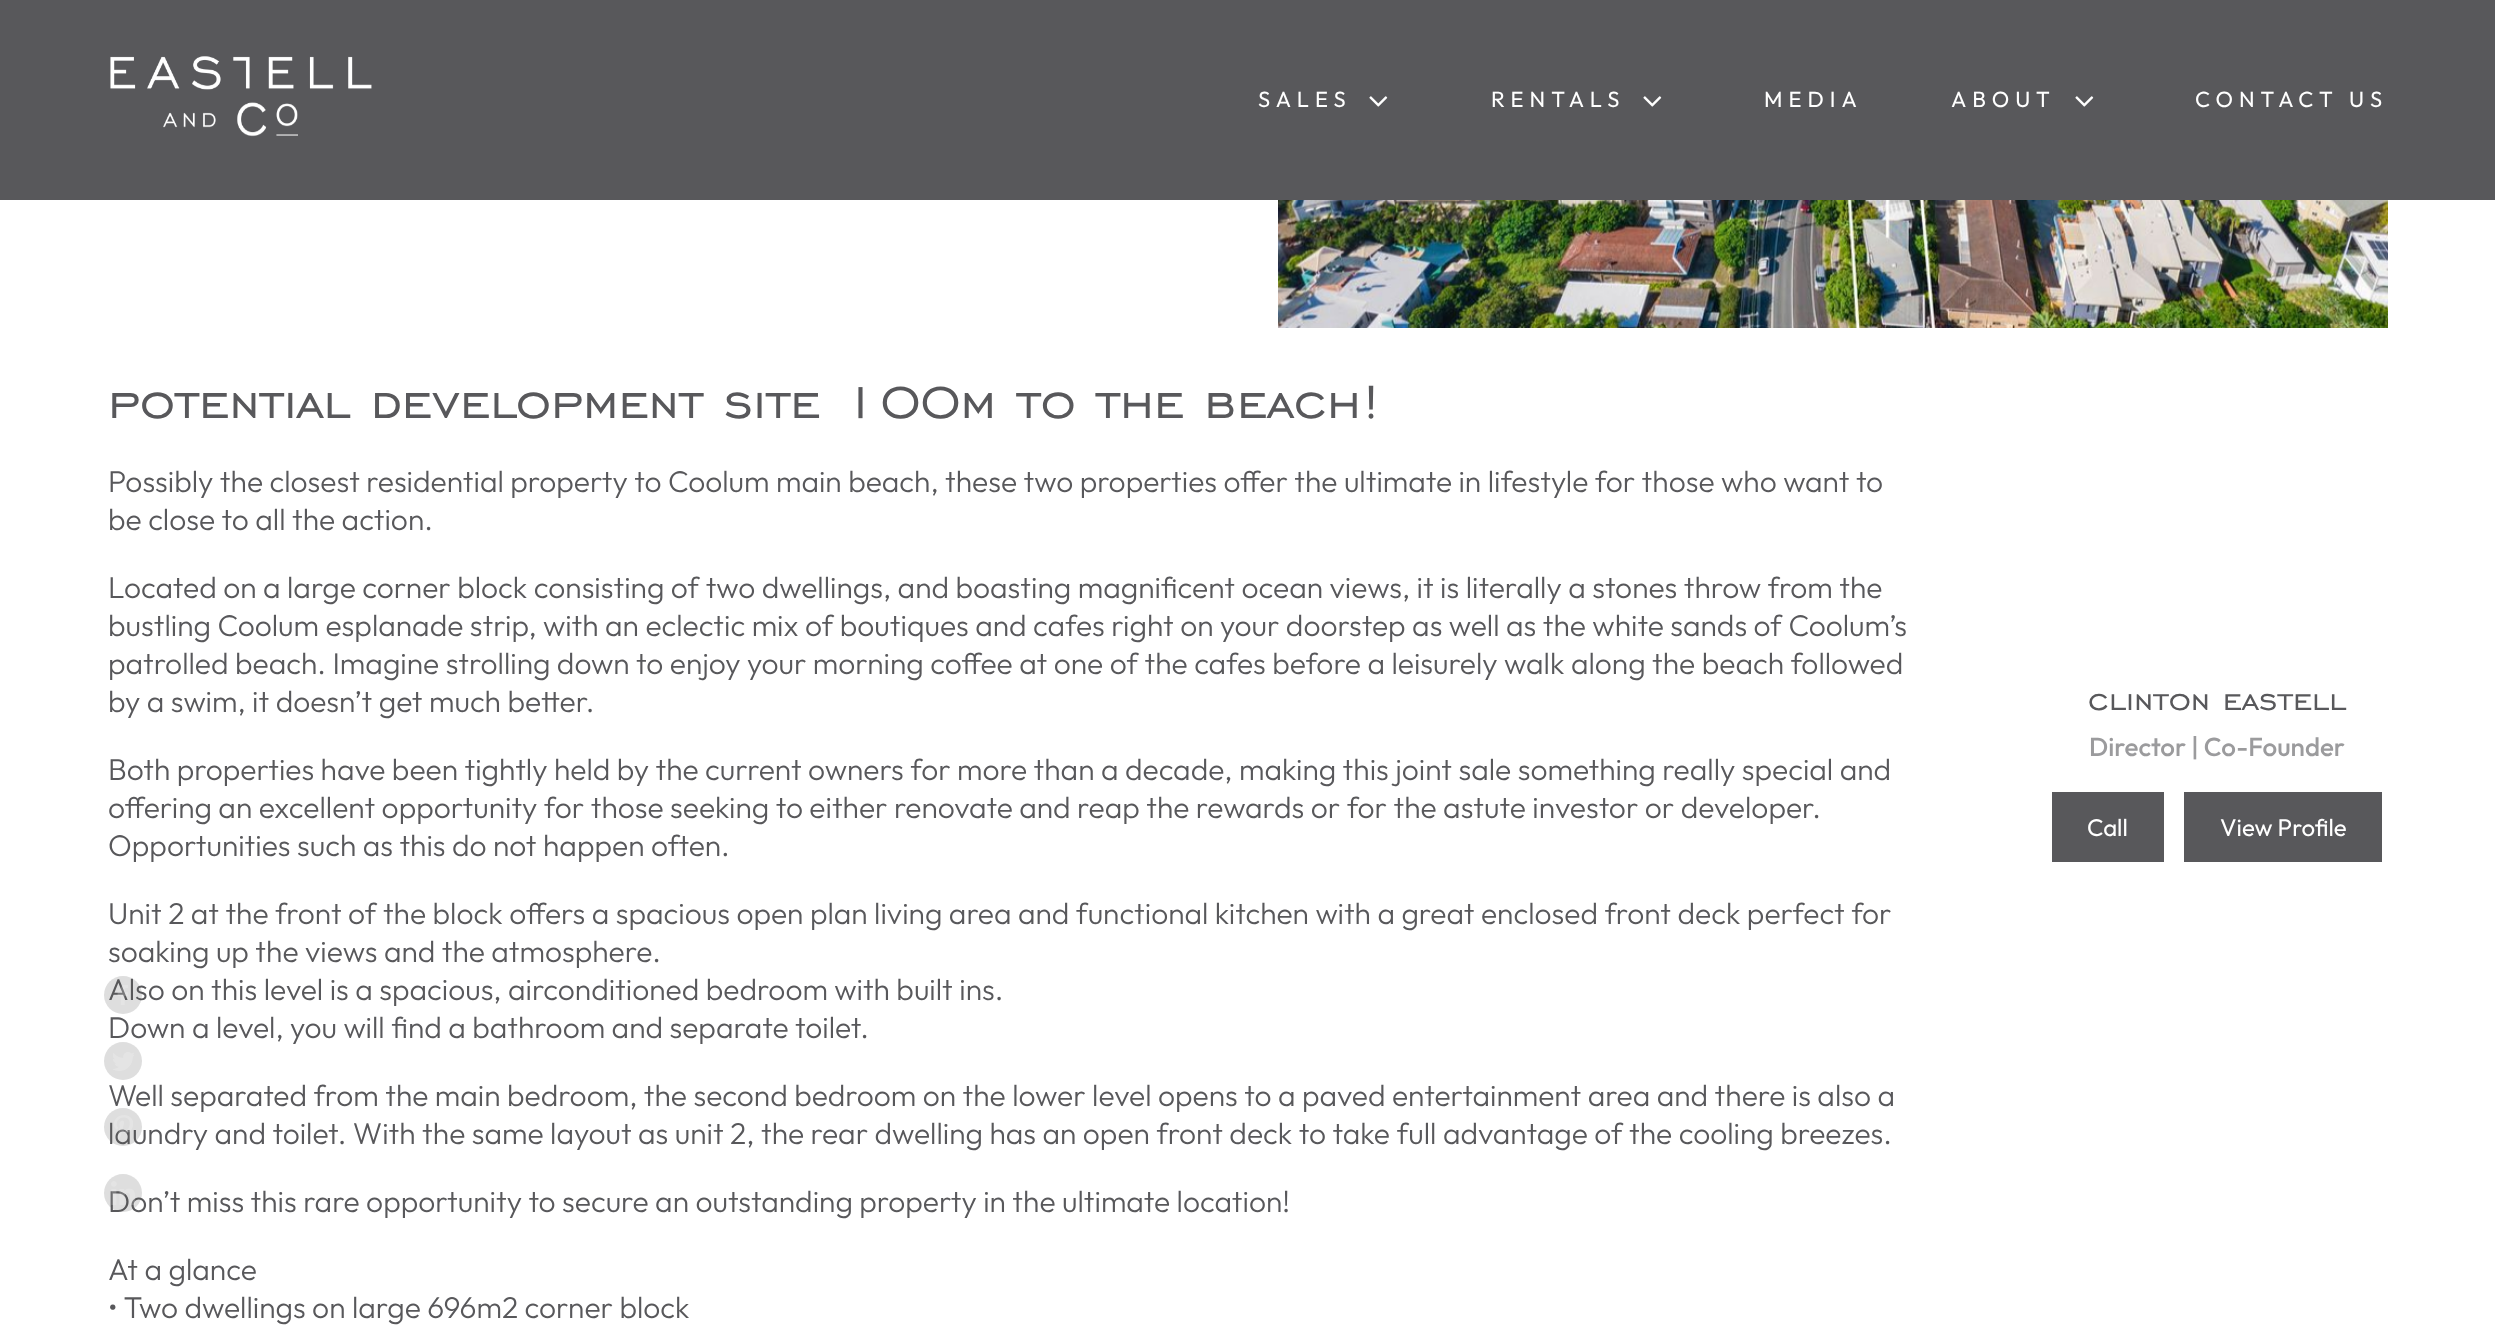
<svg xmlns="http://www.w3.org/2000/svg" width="2495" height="1339">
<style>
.a{font:22px Outfit;letter-spacing:6px;fill:#fff}
.b{font:60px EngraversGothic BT;fill:#58585b}
.c{font:300 30px Outfit;fill:#58585b}
.d{font:38px EngraversGothic BT;fill:#58585b}
.e{font:500 26px Outfit;fill:#9b9b9d}
.f{font:24px Outfit;fill:#fff}
</style>
<rect width="100%" height="100%" fill="#fff"/>
<path fill="#58585b" d="M0 0h2495v200H0z"/>
<image href="1.png" x="110" y="56" width="262" height="81"/>
<image href="2.png" x="1369" y="96" width="19" height="11"/>
<image href="2.png" x="1643" y="96" width="19" height="11"/>
<image href="2.png" x="2075" y="96" width="19" height="11"/>
<image href="3.png" x="1278" y="200" width="1110" height="128"/>
<path fill="#58585b" d="M2052 792h112v70H2052z"/>
<path fill="#58585b" d="M2184 792h198v70H2184z"/>
<text class="a" x="1258" y="107">SALES</text>
<text class="a" x="1491" y="107">RENTALS</text>
<text class="a" x="1764" y="107">MEDIA</text>
<text class="a" x="1951" y="107">ABOUT</text>
<text class="a" x="2195" y="107">CONTACT US</text>
<text class="b" x="108" y="418" word-spacing="0.25">potential development site 100m to the beach!</text>
<text class="c" x="108" y="492">Possibly the closest residential property to Coolum main beach, these two properties offer the ultimate in lifestyle for those who want to</text>
<text class="c" x="108" y="530">be close to all the action.</text>
<text class="c" x="108" y="598">Located on a large corner block consisting of two dwellings, and boasting magnificent ocean views, it is literally a stones throw from the</text>
<text class="c" x="108" y="636">bustling Coolum esplanade strip, with an eclectic mix of boutiques and cafes right on your doorstep as well as the white sands of Coolum’s</text>
<text class="c" x="108" y="674">patrolled beach. Imagine strolling down to enjoy your morning coffee at one of the cafes before a leisurely walk along the beach followed</text>
<text class="c" x="108" y="712">by a swim, it doesn’t get much better.</text>
<text class="c" x="108" y="780">Both properties have been tightly held by the current owners for more than a decade, making this joint sale something really special and</text>
<text class="c" x="108" y="818">offering an excellent opportunity for those seeking to either renovate and reap the rewards or for the astute investor or developer.</text>
<text class="c" x="108" y="856">Opportunities such as this do not happen often.</text>
<text class="c" x="108" y="924">Unit 2 at the front of the block offers a spacious open plan living area and functional kitchen with a great enclosed front deck perfect for</text>
<text class="c" x="108" y="962">soaking up the views and the atmosphere.</text>
<text class="c" x="108" y="1000">Also on this level is a spacious, airconditioned bedroom with built ins.</text>
<text class="c" x="108" y="1038">Down a level, you will find a bathroom and separate toilet.</text>
<text class="c" x="108" y="1106">Well separated from the main bedroom, the second bedroom on the lower level opens to a paved entertainment area and there is also a</text>
<text class="c" x="108" y="1144">laundry and toilet. With the same layout as unit 2, the rear dwelling has an open front deck to take full advantage of the cooling breezes.</text>
<text class="c" x="108" y="1212">Don’t miss this rare opportunity to secure an outstanding property in the ultimate location!</text>
<text class="c" x="108" y="1280">At a glance</text>
<text class="c" x="108" y="1318">• Two dwellings on large 696m2 corner block</text>
<circle fill="#58585b33" cx="123" cy="995" r="19"/>
<image href="4.png" x="117" y="985" width="11" height="20"/>
<circle fill="#dedede" cx="123" cy="1061" r="19"/>
<image href="5.png" x="113" y="1052" width="21" height="19"/>
<circle fill="#58585b33" cx="123" cy="1127" r="19"/>
<image href="6.png" x="114" y="1115" width="19" height="25"/>
<circle fill="#58585b33" cx="123" cy="1193" r="19"/>
<image href="7.png" x="111" y="1181" width="24" height="24"/>
<text class="d" x="2088" y="710">clinton eastell</text>
<text class="e" x="2089" y="756">Director | Co-Founder</text>
<text class="f" x="2087" y="836">Call</text>
<text class="f" x="2220" y="836">View Profile</text>
</svg>
